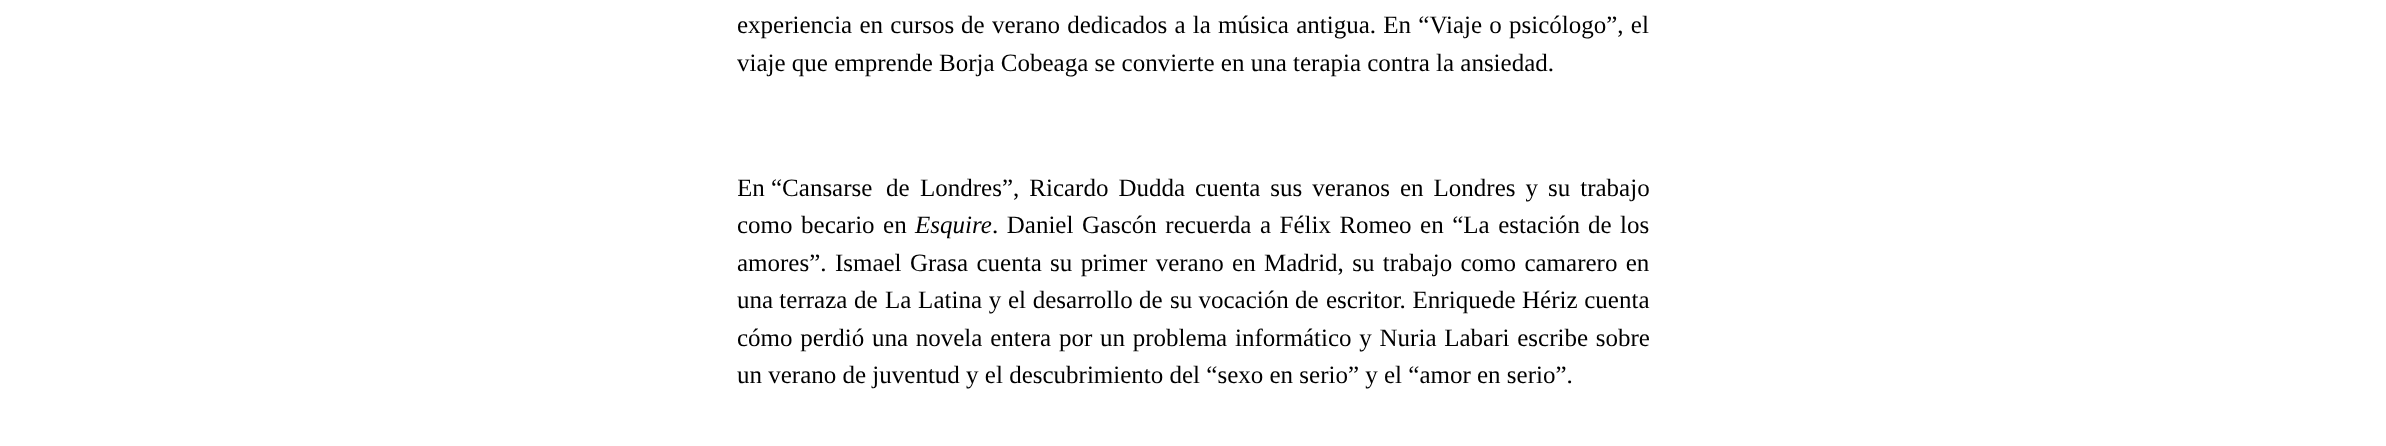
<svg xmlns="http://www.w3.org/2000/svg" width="2386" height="446">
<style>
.a{font:25px Liberation Serif;fill:#000}
.b{font:italic 25px Liberation Serif;fill:#000}
</style>
<defs>
<clipPath id="clip1"><path d="M738 0h912v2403H738z"/></clipPath>
</defs>
<rect width="100%" height="100%" fill="#fff"/>
<g clip-path="url(#clip1)">
<text class="a" x="737" y="33" word-spacing="1">experiencia en cursos</text>
</g>
<text class="a" x="961" y="33">de</text>
<text class="a" x="992" y="33" word-spacing="1">verano dedicados a la música antigua. En “Viaje o psicólogo”, el</text>
<text class="a" x="737" y="71">viaje que emprende Borja Cobeaga se convierte en una terapia contra la ansiedad.</text>
<g clip-path="url(#clip1)">
<text class="a" x="737" y="196">En “Cansarse</text>
</g>
<text class="a" x="886" y="196">de</text>
<text class="a" x="920" y="196" word-spacing="3.75">Londres”, Ricardo Dudda cuenta sus veranos en Londres y su trabajo</text>
<g clip-path="url(#clip1)">
<text class="a" x="737" y="233" word-spacing="2.25">como becario en</text>
</g>
<text class="b" x="915" y="233">Esquire</text>
<text class="a" x="992" y="233" word-spacing="2.25">. Daniel Gascón recuerda a Félix Romeo en “La estación</text>
<text class="a" x="1588" y="233">de</text>
<text class="a" x="1620" y="233">los</text>
<text class="a" x="737" y="271" word-spacing="2.1">amores”. Ismael Grasa cuenta su primer verano en Madrid, su trabajo como camarero en</text>
<text class="a" x="737" y="308">una terraza</text>
<text class="a" x="854" y="308">de</text>
<text class="a" x="885" y="308" word-spacing="0.5">La Latina y el desarrollo</text>
<text class="a" x="1139" y="308">de</text>
<text class="a" x="1170" y="308">su vocación</text>
<text class="a" x="1295" y="308">de</text>
<text class="a" x="1326" y="308" word-spacing="0.5">escritor. Enrique</text>
<text class="a" x="1492" y="308">de</text>
<text class="a" x="1522" y="308" word-spacing="0.5">Hériz cuenta</text>
<g clip-path="url(#clip1)">
<text class="a" x="737" y="346" word-spacing="1.5">cómo perdió una novela entera por un problema informático y Nuria Labari escribe sobre</text>
</g>
<text class="a" x="737" y="383">un verano de juventud y el descubrimiento del “sexo en serio” y el “amor en serio”.</text>
</svg>
